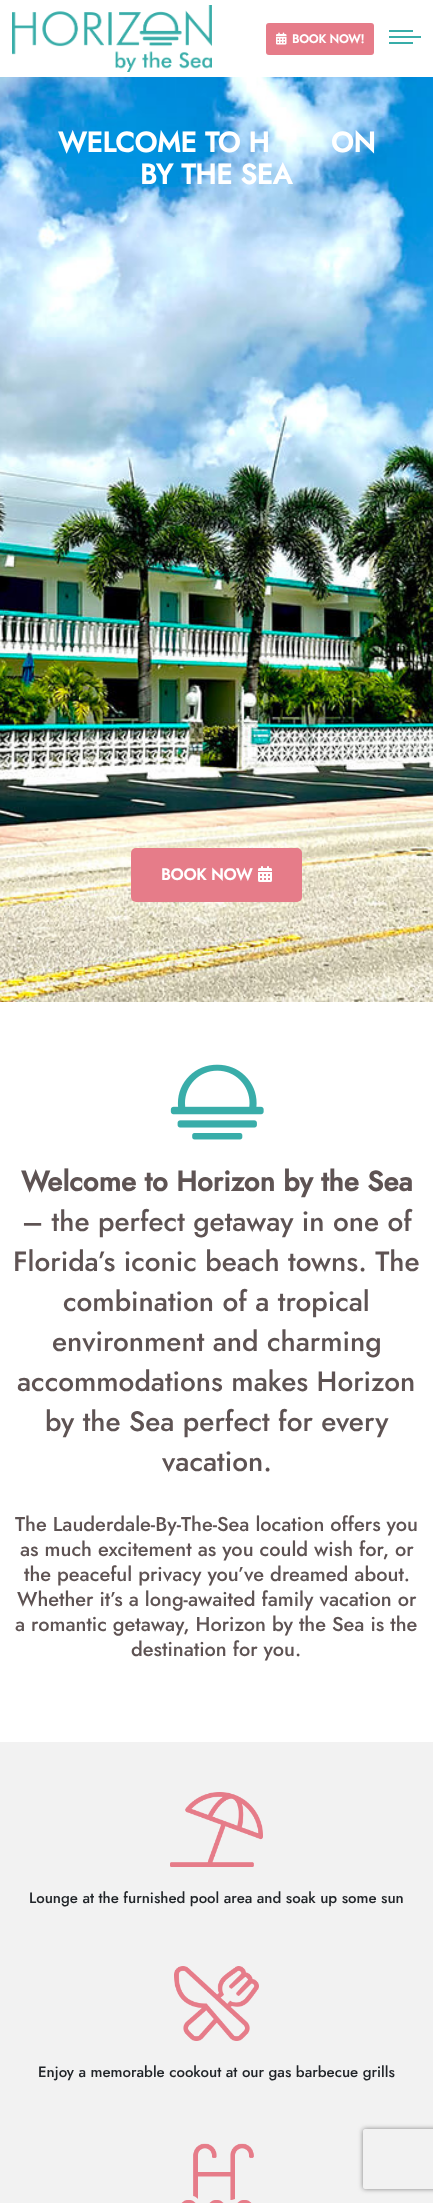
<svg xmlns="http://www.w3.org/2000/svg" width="433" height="2203">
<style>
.a{font:bold 12px Jost;fill:#fff}
.b{font:bold 28px Jost;fill:#fff}
.c{font:bold 16px Jost;fill:#fff}
.d{font:bold 28px Jost;fill:#5e5353}
.e{font:500 28px Jost;fill:#5e5353}
.f{font:500 20px Jost;fill:#5e5353}
.g{font:500 15px Jost;fill:#212529}
</style>
<defs>
<clipPath id="clip1"><path d="M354 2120h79v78h-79zm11 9h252c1 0 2 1 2 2v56c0 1-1 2-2 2h-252c-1 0-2-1-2-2v-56c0-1 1-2 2-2z" clip-rule="evenodd"/></clipPath>
</defs>
<rect width="100%" height="100%" fill="#fff"/>
<image href="1.png" x="12" y="5" width="200" height="67"/>
<rect fill="#e67c89" x="266" y="23" width="108" height="32" rx="3"/>
<image href="2.png" x="276" y="32" width="11" height="13"/>
<path fill="#38ada9" d="M389 30h24v2H389z"/>
<path fill="#38ada9" d="M389 36h32v2H389z"/>
<path fill="#38ada9" d="M389 42h24v2H389z"/>
<image href="3.png" x="0" y="77" width="433" height="925"/>
<rect fill="#e67c89" x="131" y="848" width="171" height="54" rx="5"/>
<image href="4.png" x="258" y="866" width="14" height="16"/>
<image href="5.png" x="170" y="1064" width="94" height="76"/>
<path fill="#f2f2f2" d="M0 1742h433v461H0z"/>
<image href="6.png" x="170" y="1792" width="93" height="75"/>
<image href="7.png" x="174" y="1966" width="85" height="75"/>
<image href="8.png" x="181" y="2143" width="73" height="60"/>
<g clip-path="url(#clip1)">
<rect fill="#808080" filter="blur(2.5px)" x="363" y="2129" width="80" height="60" rx="2"/>
</g>
<text class="a" x="292" y="43">BOOK NOW!</text>
<text class="b" x="58" y="152">WELCOME TO H</text>
<text class="b" x="331" y="152">ON</text>
<text class="b" x="140" y="184">BY THE SEA</text>
<text class="c" x="161" y="880">BOOK NOW</text>
<text class="d" x="21" y="1191">Welcome to Horizon by the Sea</text>
<text class="e" x="22" y="1231">– the perfect getaway in one of</text>
<text class="e" x="13" y="1271">Florida’s iconic beach towns. The</text>
<text class="e" x="63" y="1311">combination of a tropical</text>
<text class="e" x="52" y="1351">environment and charming</text>
<text class="e" x="17" y="1391">accommodations makes Horizon</text>
<text class="e" x="45" y="1431">by the Sea perfect for every</text>
<text class="e" x="162" y="1471">vacation.</text>
<text class="f" x="15" y="1531">The Lauderdale-By-The-Sea location offers you</text>
<text class="f" x="20" y="1556">as much excitement as you could wish for, or</text>
<text class="f" x="24" y="1581">the peaceful privacy you’ve dreamed about.</text>
<text class="f" x="17" y="1606">Whether it’s a long-awaited family vacation or</text>
<text class="f" x="15" y="1631">a romantic getaway, Horizon by the Sea is the</text>
<text class="f" x="131" y="1656">destination for you.</text>
<text class="g" x="29" y="1903">Lounge at the furnished pool area and soak up some sun</text>
<text class="g" x="38" y="2077">Enjoy a memorable cookout at our gas barbecue grills</text>
</svg>
